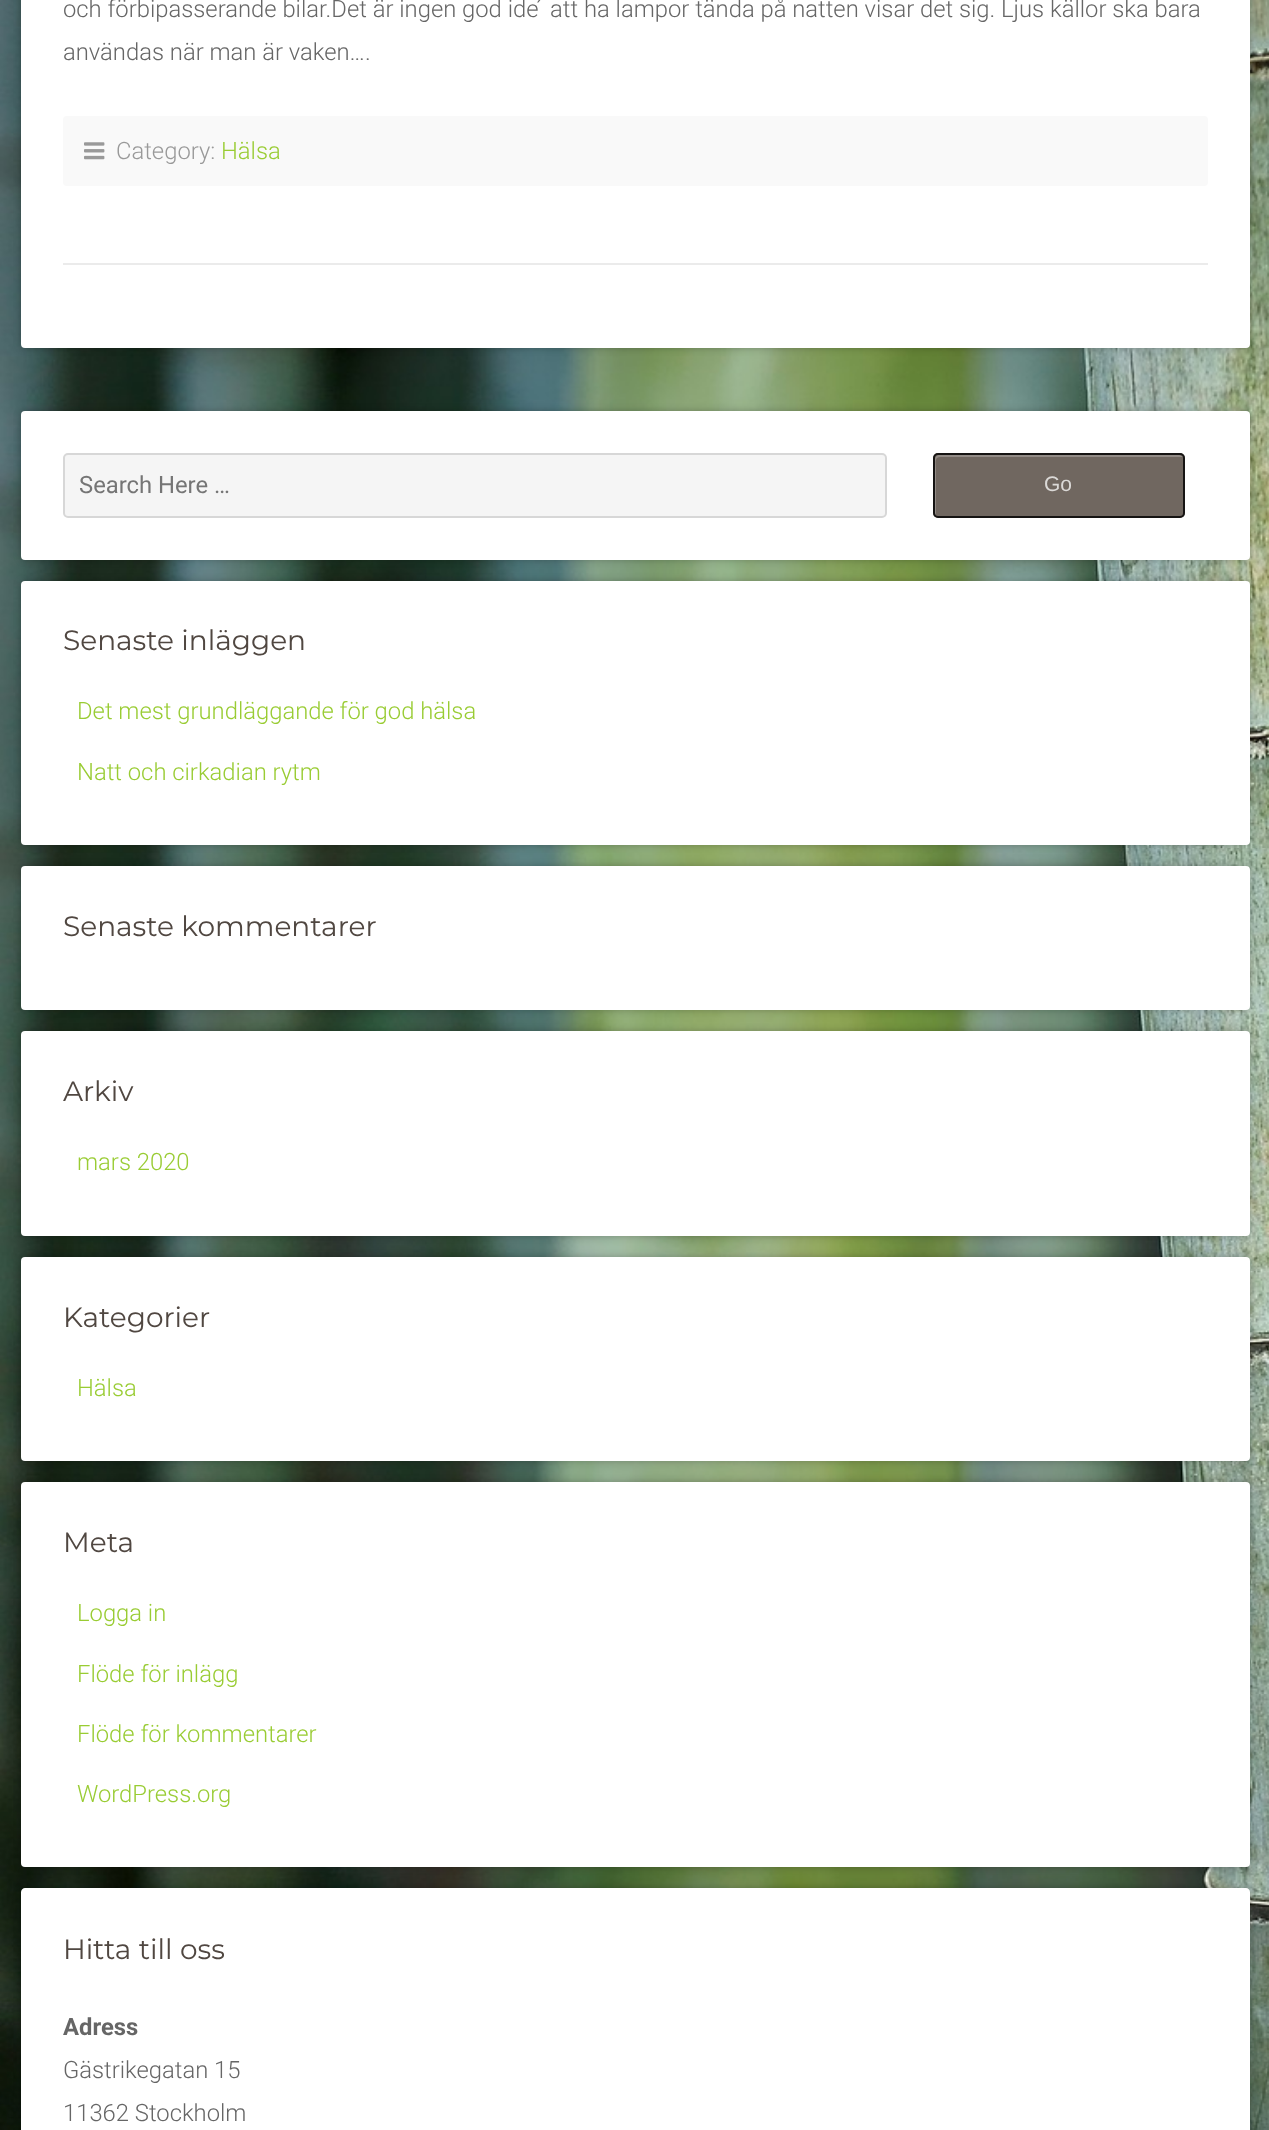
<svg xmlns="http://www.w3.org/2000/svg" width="1269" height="2130">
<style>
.a{font:300 23.8px Roboto;fill:#666}
.b{font:300 23.8px Roboto;fill:#999}
.c{font:300 23.8px Roboto;fill:#9c3}
.d{font:23.8px Roboto;fill:#757575}
.e{font:21px Liberation Sans;fill:#dbd9d7}
.f{font:28px Montserrat;fill:#504741}
.g{font:bold 23.8px Roboto;fill:#666}
</style>
<rect width="100%" height="100%" fill="#fff"/>
<image href="1.png" x="0" y="0" width="1269" height="2130"/>
<rect fill="#0000003d" filter="blur(3.5px)" x="21" y="-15" width="1229" height="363" rx="4"/>
<rect fill="#fff" x="21" y="-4" width="1229" height="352" rx="4"/>
<path fill="#ebebeb" d="M63 263h1145v2H63z"/>
<rect fill="#f9f9f9" x="63" y="116" width="1145" height="70" rx="4"/>
<image href="2.png" x="84" y="142" width="21" height="18"/>
<rect fill="#0000003d" filter="blur(3.5px)" x="21" y="411" width="1229" height="149" rx="4"/>
<rect fill="#fff" x="21" y="411" width="1229" height="149" rx="4"/>
<rect fill="#f5f5f5" x="63" y="453" width="824" height="65" rx="5"/>
<rect fill="none" stroke="#0000001f" stroke-width="2" x="64" y="454" width="822" height="63" rx="4"/>
<rect fill="#706760" x="933" y="453" width="252" height="65" rx="5"/>
<path fill="#928b86" d="M940 457h243c-1-1-2-2-4-2h-240c-2 0-4 2-4 4v53c0 1 0 2 1 3v-46c0-4-2-12 4-12z"/>
<rect fill="none" stroke="#000000cc" stroke-width="2" x="934" y="454" width="250" height="63" rx="4"/>
<rect fill="#0000003d" filter="blur(3.5px)" x="21" y="581" width="1229" height="264" rx="4"/>
<rect fill="#fff" x="21" y="581" width="1229" height="264" rx="4"/>
<rect fill="#0000003d" filter="blur(3.5px)" x="21" y="866" width="1229" height="144" rx="4"/>
<rect fill="#fff" x="21" y="866" width="1229" height="144" rx="4"/>
<rect fill="#0000003d" filter="blur(3.5px)" x="21" y="1031" width="1229" height="205" rx="4"/>
<rect fill="#fff" x="21" y="1031" width="1229" height="205" rx="4"/>
<rect fill="#0000003d" filter="blur(3.5px)" x="21" y="1257" width="1229" height="204" rx="4"/>
<rect fill="#fff" x="21" y="1257" width="1229" height="204" rx="4"/>
<rect fill="#0000003d" filter="blur(3.5px)" x="21" y="1482" width="1229" height="385" rx="4"/>
<rect fill="#fff" x="21" y="1482" width="1229" height="385" rx="4"/>
<rect fill="#0000003d" filter="blur(3.5px)" x="21" y="1888" width="1229" height="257" rx="4"/>
<path fill="#fff" d="M25 1888h1221c2 0 4 2 4 4v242h-1229v-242c0-2 2-4 4-4z"/>
<text class="a" x="63" y="17">och förbipasserande bilar.Det är ingen god ide ́ att ha lampor tända på natten visar det sig. Ljus källor ska bara</text>
<text class="a" x="63" y="60">användas när man är vaken….</text>
<text class="b" x="116" y="159">Category:</text>
<text class="c" x="221" y="159">Hälsa</text>
<text class="d" x="79" y="493">Search Here …</text>
<text class="e" x="1044" y="491">Go</text>
<text class="f" x="63" y="650">Senaste inläggen</text>
<text class="c" x="77" y="719">Det mest grundläggande för god hälsa</text>
<text class="c" x="77" y="780">Natt och cirkadian rytm</text>
<text class="f" x="63" y="936">Senaste kommentarer</text>
<text class="f" x="63" y="1101">Arkiv</text>
<text class="c" x="77" y="1170">mars 2020</text>
<text class="f" x="63" y="1327">Kategorier</text>
<text class="c" x="77" y="1396">Hälsa</text>
<text class="f" x="63" y="1552">Meta</text>
<text class="c" x="77" y="1621">Logga in</text>
<text class="c" x="77" y="1682">Flöde för inlägg</text>
<text class="c" x="77" y="1742">Flöde för kommentarer</text>
<text class="c" x="77" y="1802">WordPress.org</text>
<text class="f" x="63" y="1959">Hitta till oss</text>
<text class="g" x="63" y="2035">Adress</text>
<text class="a" x="63" y="2078">Gästrikegatan 15</text>
<text class="a" x="63" y="2121">11362 Stockholm</text>
</svg>
